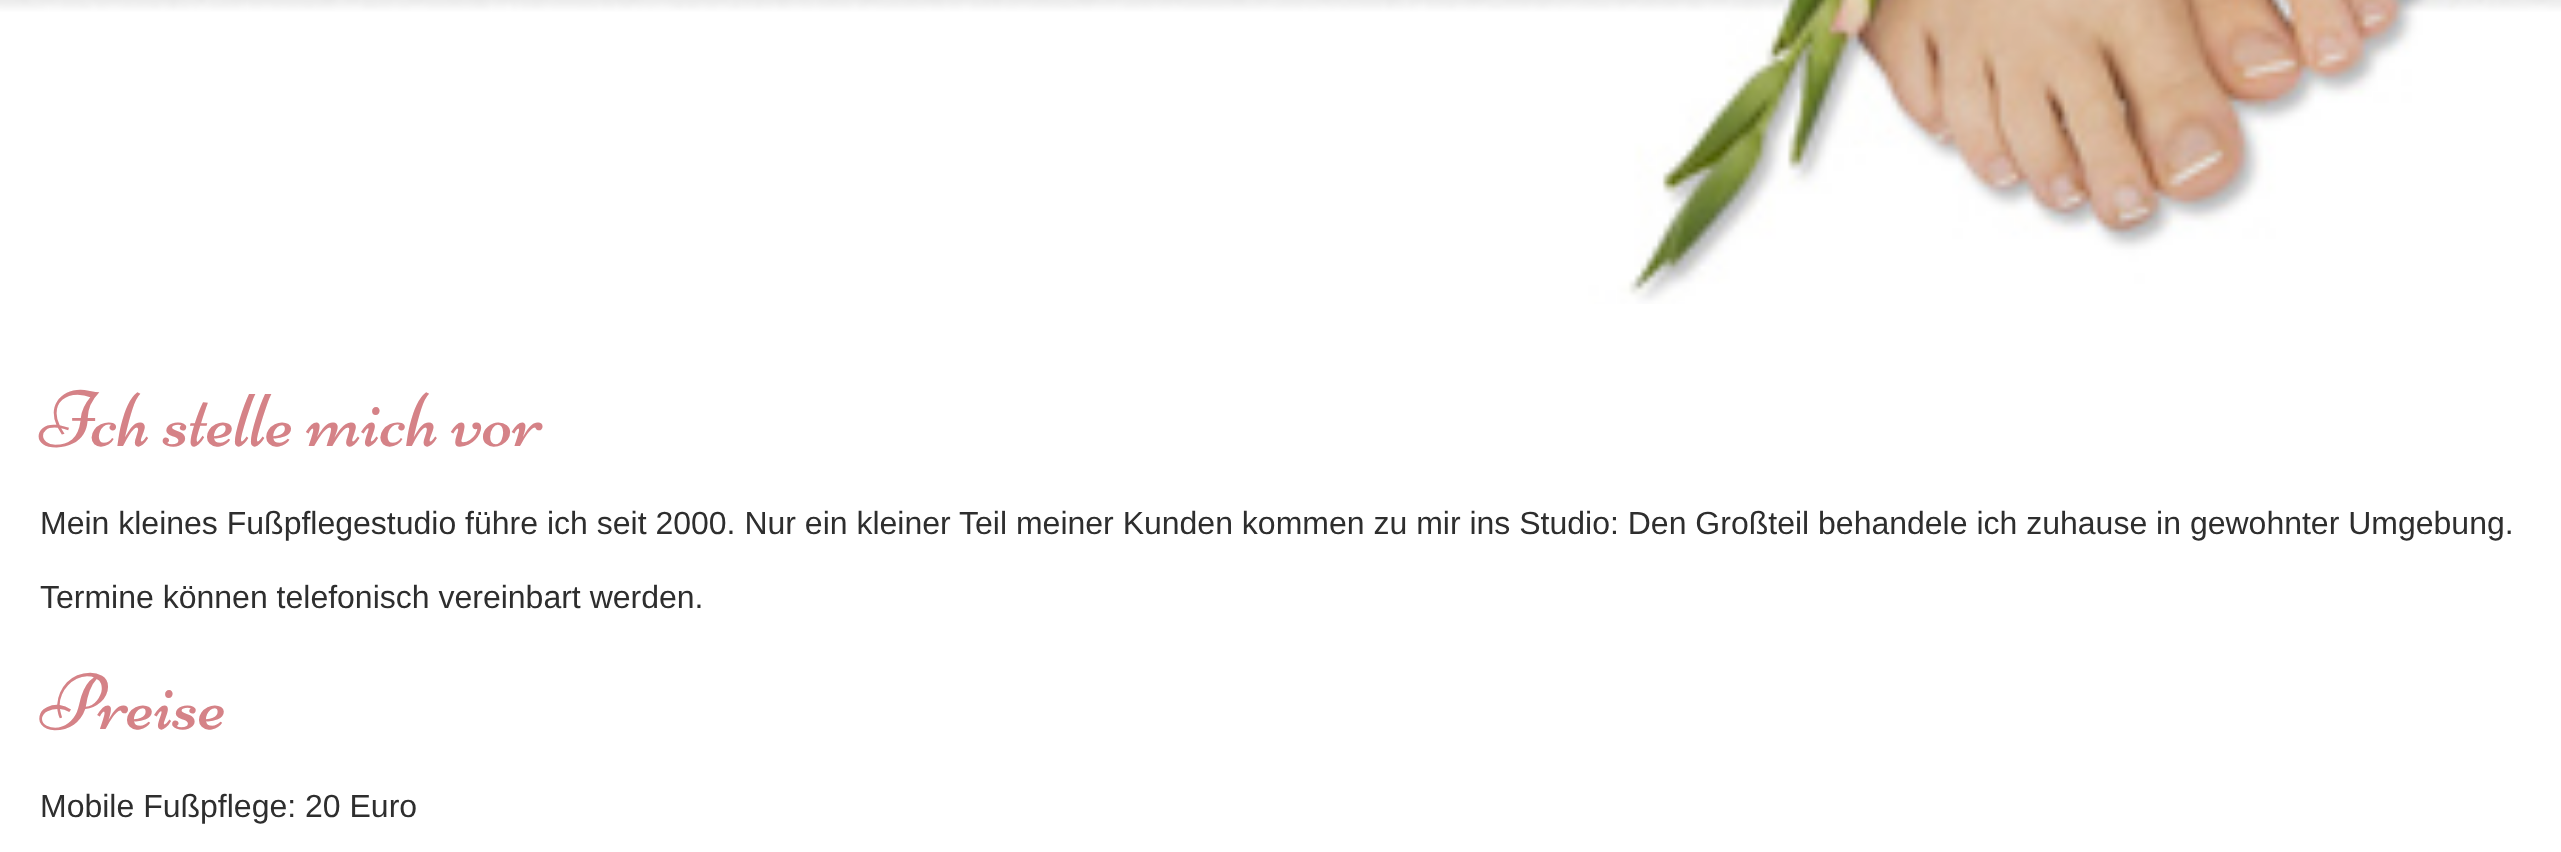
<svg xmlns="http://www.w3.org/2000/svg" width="2561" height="852">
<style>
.a{font:80px Niconne;fill:#d58287}
.b{font:32px Liberation Sans;fill:#2e2e2e}
</style>
<rect width="100%" height="100%" fill="#fff"/>
<image href="1.png" x="0" y="0" width="2561" height="304"/>
<text class="a" x="40" y="446">Ich stelle mich vor</text>
<text class="b" x="40" y="534">Mein kleines Fußpflegestudio führe ich seit 2000. Nur ein kleiner Teil meiner Kunden kommen zu mir ins Studio: Den Großteil behandele ich zuhause in gewohnter Umgebung.</text>
<text class="b" x="40" y="608">Termine können telefonisch vereinbart werden.</text>
<text class="a" x="40" y="729">Preise</text>
<text class="b" x="40" y="817">Mobile Fußpflege: 20 Euro</text>
</svg>
